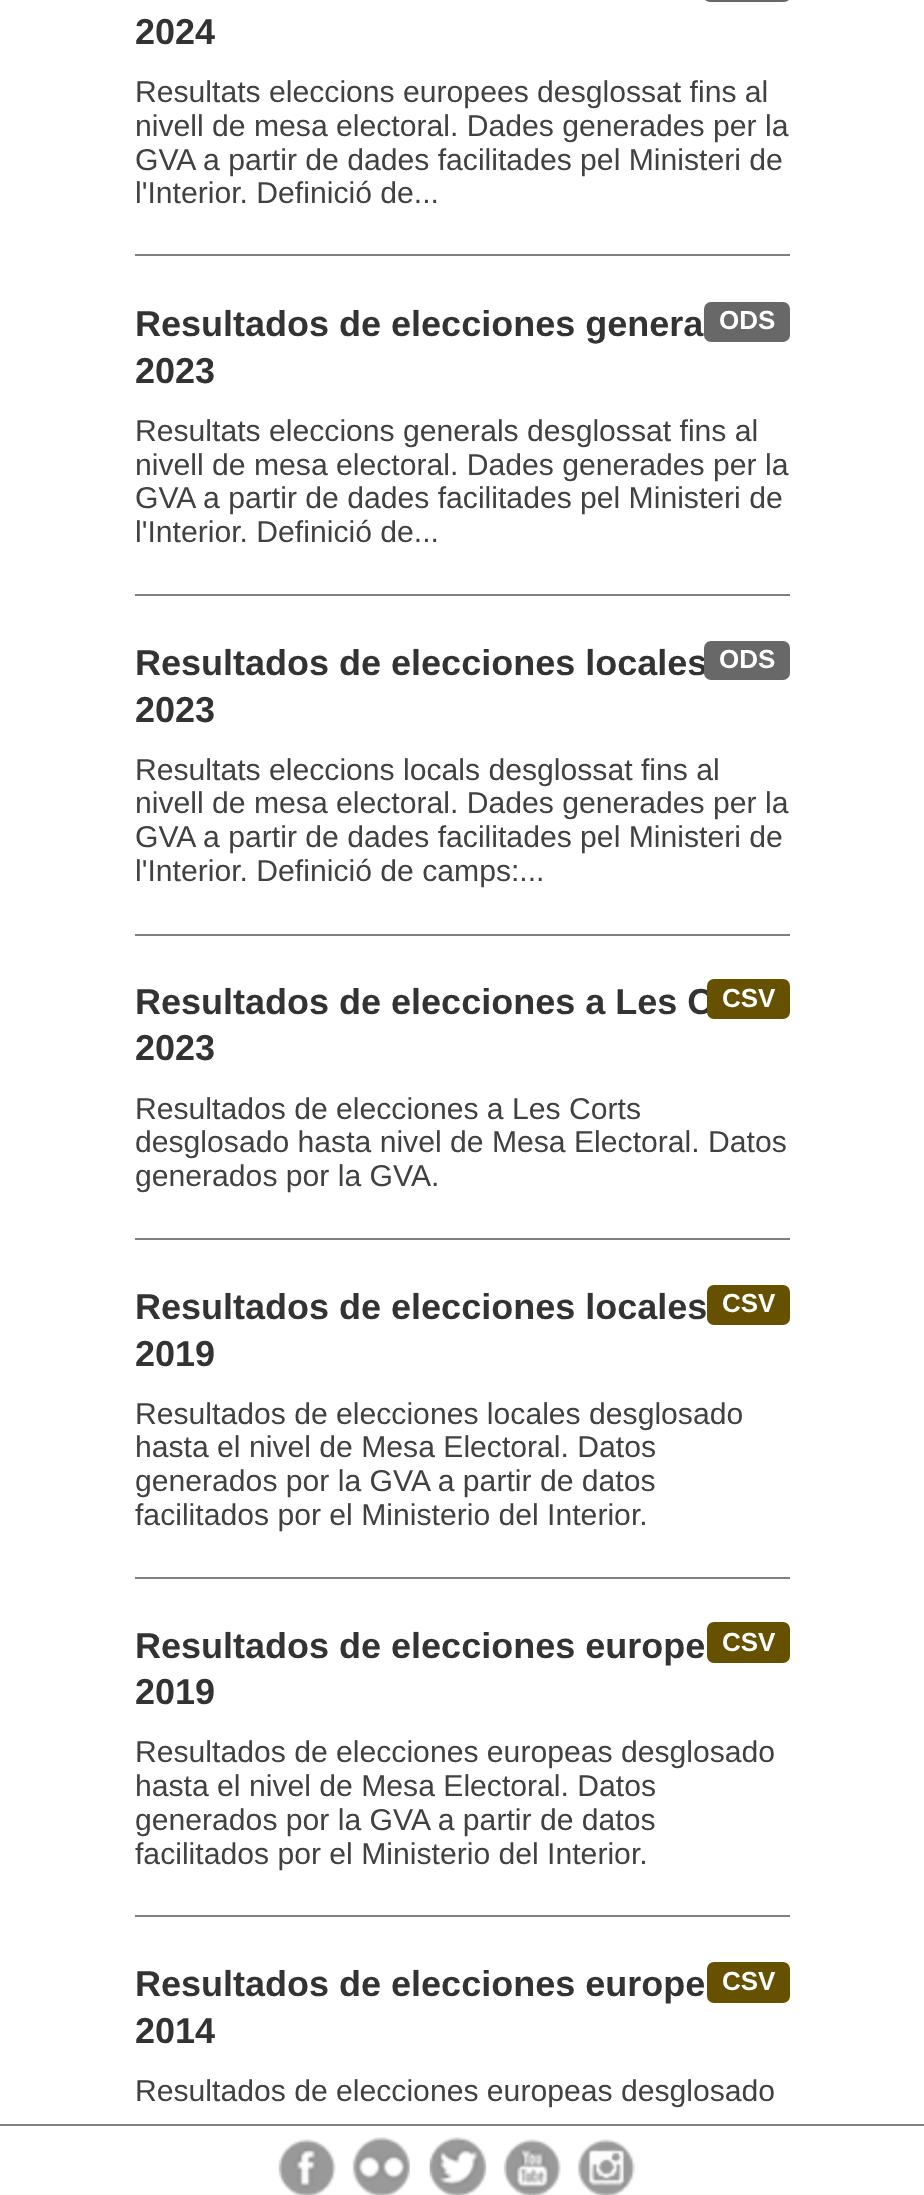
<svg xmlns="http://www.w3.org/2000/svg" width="924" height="2195">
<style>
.a{font:bold 36px Liberation Sans;fill:#333}
.b{font:30.15px Liberation Sans;fill:#414042}
.c{font:bold 26px Liberation Sans;fill:#fff}
</style>
<rect width="100%" height="100%" fill="#fff"/>
<path fill="#808080" d="M135 254h655v2H135z"/>
<rect fill="#686868" x="704" y="-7" width="86" height="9" rx="7"/>
<path fill="#808080" d="M135 594h655v2H135z"/>
<rect fill="#686868" x="704" y="302" width="86" height="40" rx="7"/>
<path fill="#808080" d="M135 934h655v2H135z"/>
<path fill="#808080" d="M135 1238h655v2H135z"/>
<path fill="#808080" d="M135 1577h655v2H135z"/>
<rect fill="#655100" x="707" y="1285" width="83" height="40" rx="7"/>
<path fill="#808080" d="M135 1915h655v2H135z"/>
<rect fill="#655100" x="707" y="1622" width="83" height="41" rx="7"/>
<rect fill="#655100" x="707" y="1962" width="83" height="41" rx="7"/>
<path fill="#808080" d="M0 2124h924v2H0z"/>
<image href="1.png" x="278" y="2139" width="58" height="56"/>
<image href="2.png" x="352" y="2137" width="58" height="58"/>
<image href="3.png" x="429" y="2137" width="58" height="58"/>
<image href="4.png" x="503" y="2139" width="58" height="56"/>
<image href="5.png" x="577" y="2139" width="58" height="56"/>
<text class="a" x="135" y="44">2024</text>
<text class="b" x="135" y="102">Resultats eleccions europees desglossat fins al</text>
<text class="b" x="135" y="136">nivell de mesa electoral. Dades generades per la</text>
<text class="b" x="135" y="170">GVA a partir de dades facilitades pel Ministeri de</text>
<text class="b" x="135" y="203">l'Interior. Definició de...</text>
<text class="a" x="135" y="336">Resultados de elecciones genera</text>
<text class="a" x="135" y="383">2023</text>
<text class="c" x="719" y="329">ODS</text>
<text class="b" x="135" y="441">Resultats eleccions generals desglossat fins al</text>
<text class="b" x="135" y="475">nivell de mesa electoral. Dades generades per la</text>
<text class="b" x="135" y="508">GVA a partir de dades facilitades</text>
<text class="b" x="580" y="508">pel Ministeri de</text>
<text class="b" x="135" y="542">l'Interior. Definició de...</text>
<text class="a" x="135" y="675">Resultados de elecciones locales</text>
<text class="a" x="135" y="722">2023</text>
<rect fill="#686868" x="704" y="641" width="86" height="39" rx="7"/>
<text class="c" x="719" y="668">ODS</text>
<text class="b" x="135" y="780">Resultats eleccions locals desglossat fins al</text>
<text class="b" x="135" y="813">nivell de mesa electoral. Dades generades per la</text>
<text class="b" x="135" y="847">GVA a partir de dades facilitades pel Ministeri de</text>
<text class="b" x="135" y="881">l'Interior. Definició de camps:...</text>
<text class="a" x="135" y="1014">Resultados de elecciones a Les C</text>
<text class="a" x="135" y="1060">2023</text>
<rect fill="#655100" x="707" y="979" width="83" height="40" rx="7"/>
<text class="c" x="722" y="1007">CSV</text>
<text class="b" x="135" y="1119">Resultados de elecciones a Les Corts</text>
<text class="b" x="135" y="1152">desglosado hasta nivel de Mesa Electoral. Datos</text>
<text class="b" x="135" y="1186">generados por la GVA.</text>
<text class="a" x="135" y="1319">Resultados de elecciones locales</text>
<text class="a" x="135" y="1366">2019</text>
<text class="c" x="722" y="1312">CSV</text>
<text class="b" x="135" y="1424">Resultados de elecciones locales desglosado</text>
<text class="b" x="135" y="1457">hasta el nivel de Mesa Electoral. Datos</text>
<text class="b" x="135" y="1491">generados por la GVA a partir de datos</text>
<text class="b" x="135" y="1525">facilitados por el Ministerio del Interior.</text>
<text class="a" x="135" y="1658">Resultados de elecciones europe</text>
<text class="a" x="135" y="1704">2019</text>
<text class="c" x="722" y="1651">CSV</text>
<text class="b" x="135" y="1762">Resultados de elecciones europeas desglosado</text>
<text class="b" x="135" y="1796">hasta el nivel de Mesa Electoral. Datos</text>
<text class="b" x="135" y="1830">generados por la GVA a partir de datos</text>
<text class="b" x="135" y="1864">facilitados por el Ministerio del Interior.</text>
<text class="a" x="135" y="1996">Resultados de elecciones europe</text>
<text class="a" x="135" y="2043">2014</text>
<text class="c" x="722" y="1990">CSV</text>
<text class="b" x="135" y="2101">Resultados de elecciones europeas desglosado</text>
</svg>
